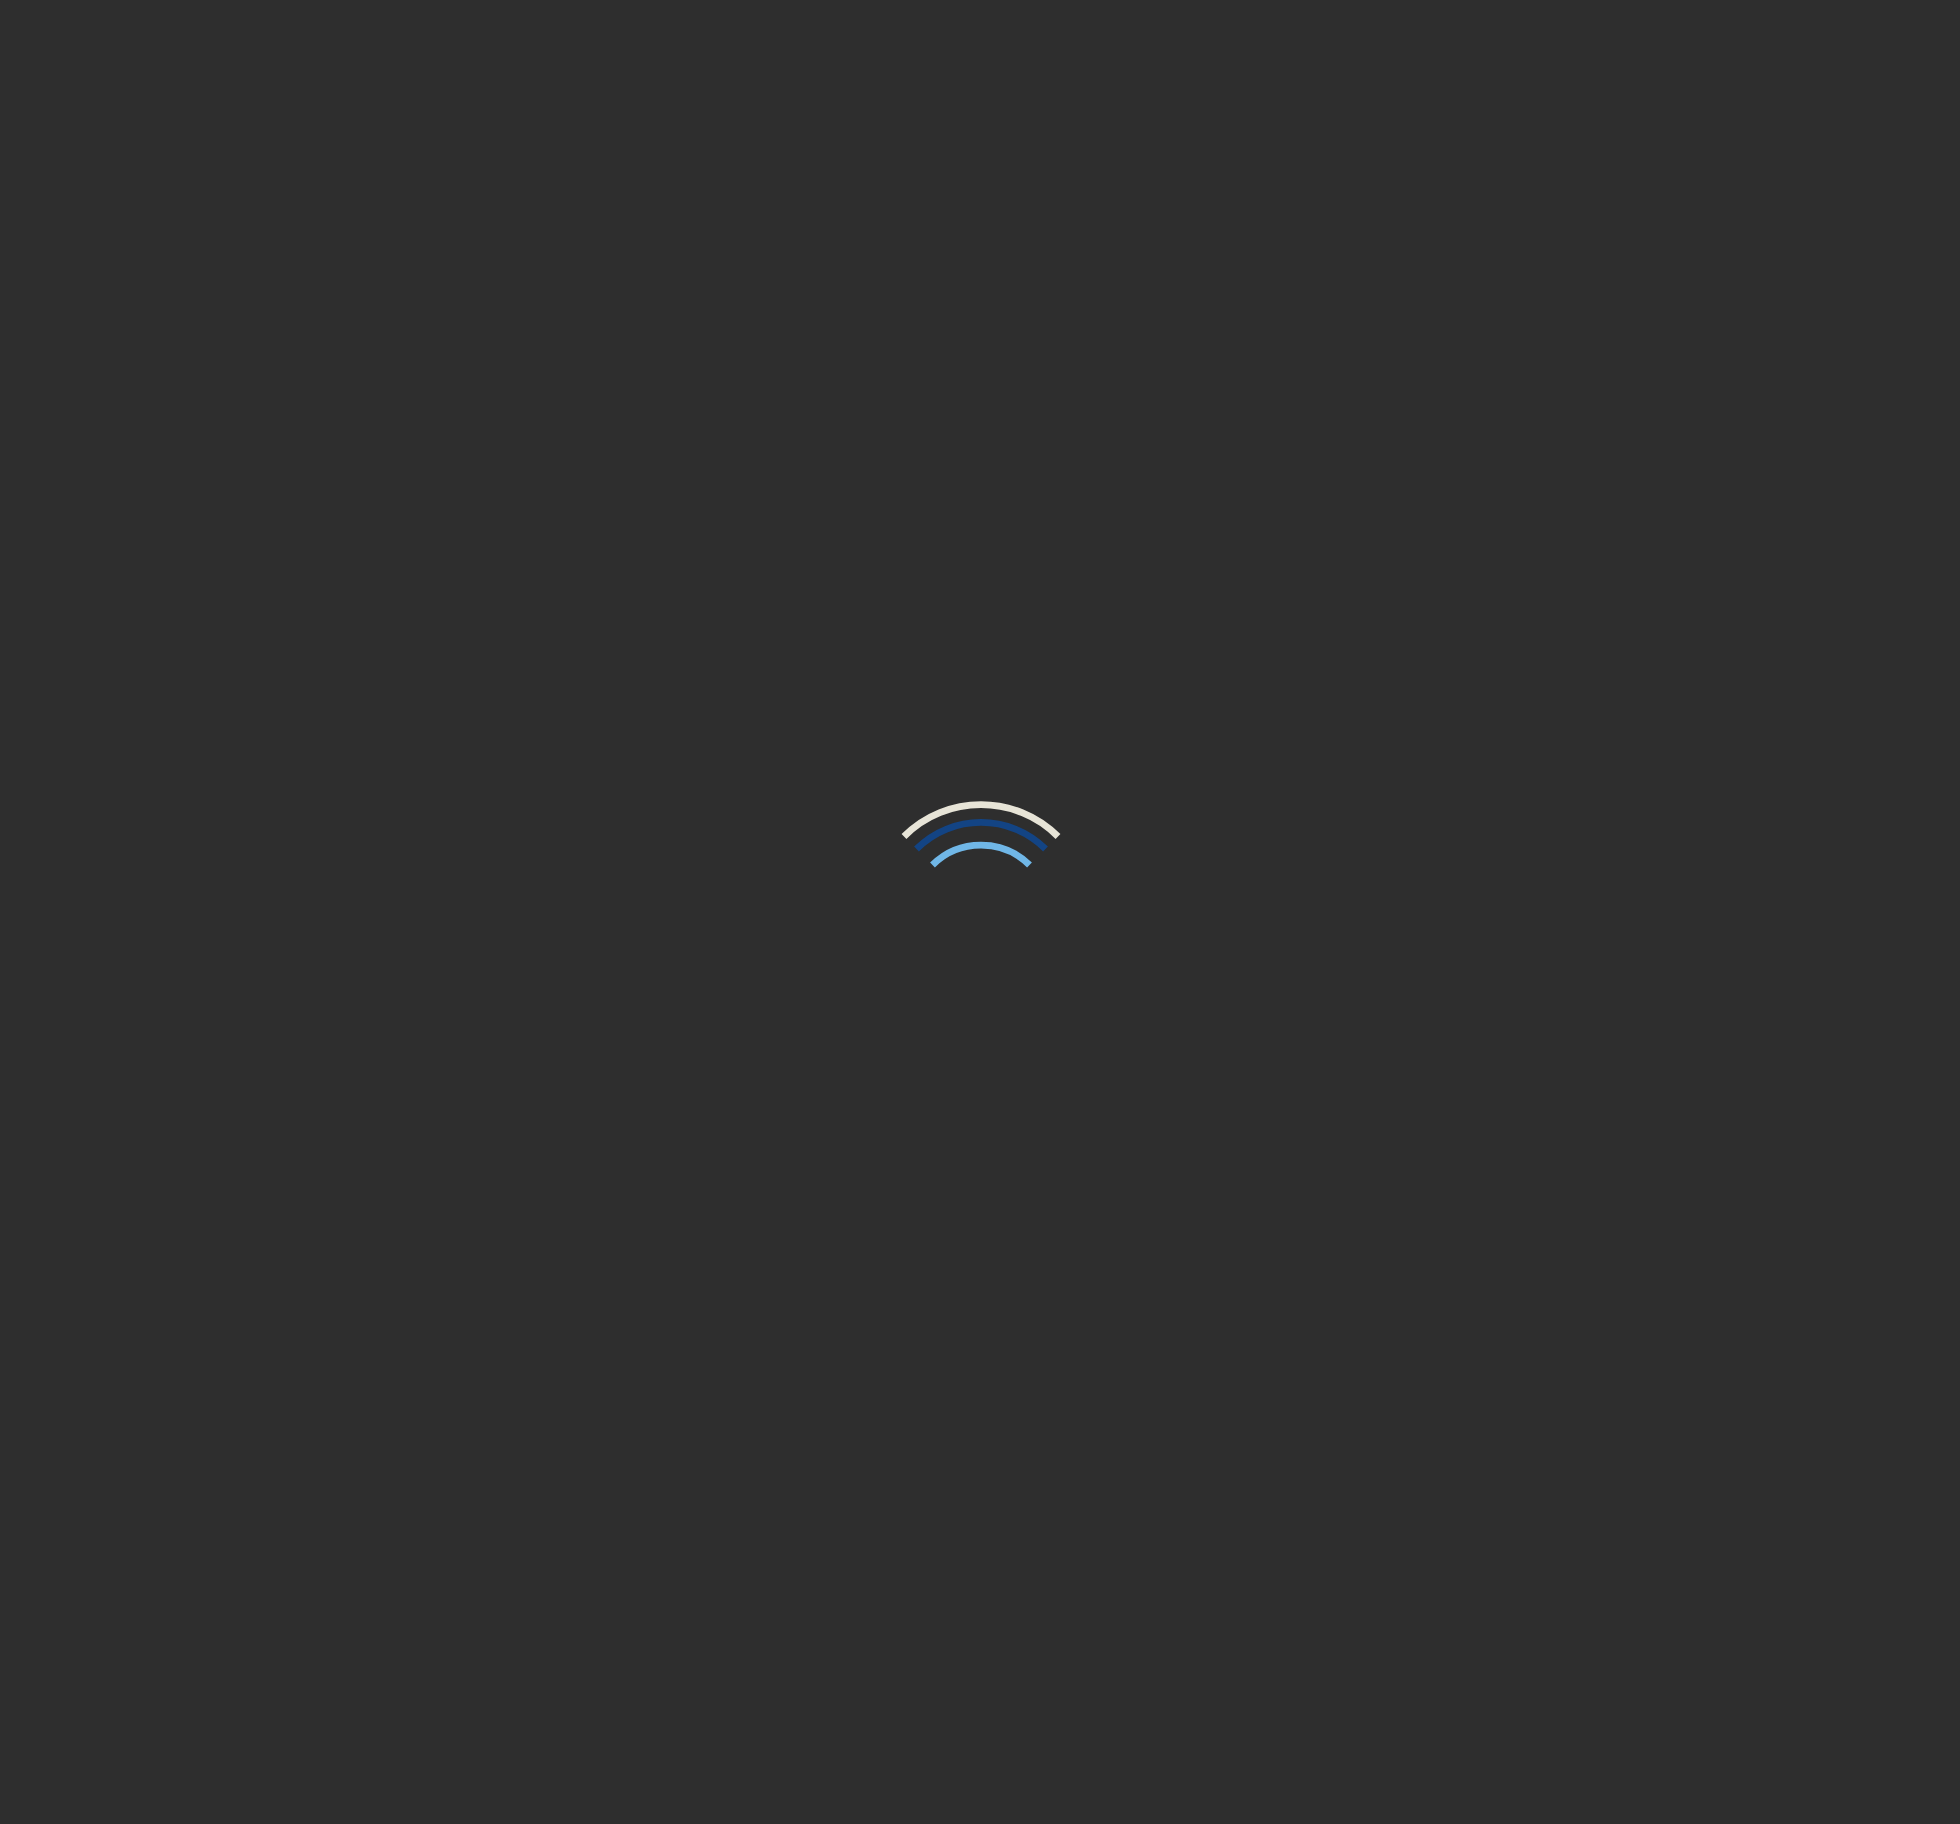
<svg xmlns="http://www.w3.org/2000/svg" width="1960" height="1824">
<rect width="100%" height="100%" fill="#2e2e2e"/>
<path fill="none" stroke="#e7e4d7" stroke-width="6.8" d="M904 836.5c42-42.5 112-42.5 154 0"/>
<path fill="none" stroke="#134484" stroke-width="6.8" d="M916.5 849c35.5-35.5 93.5-35.5 129 0"/>
<path fill="none" stroke="#70b7e7" stroke-width="6.8" d="M932.5 865c26.5-26.5 70.5-26.5 97 0"/>
</svg>
